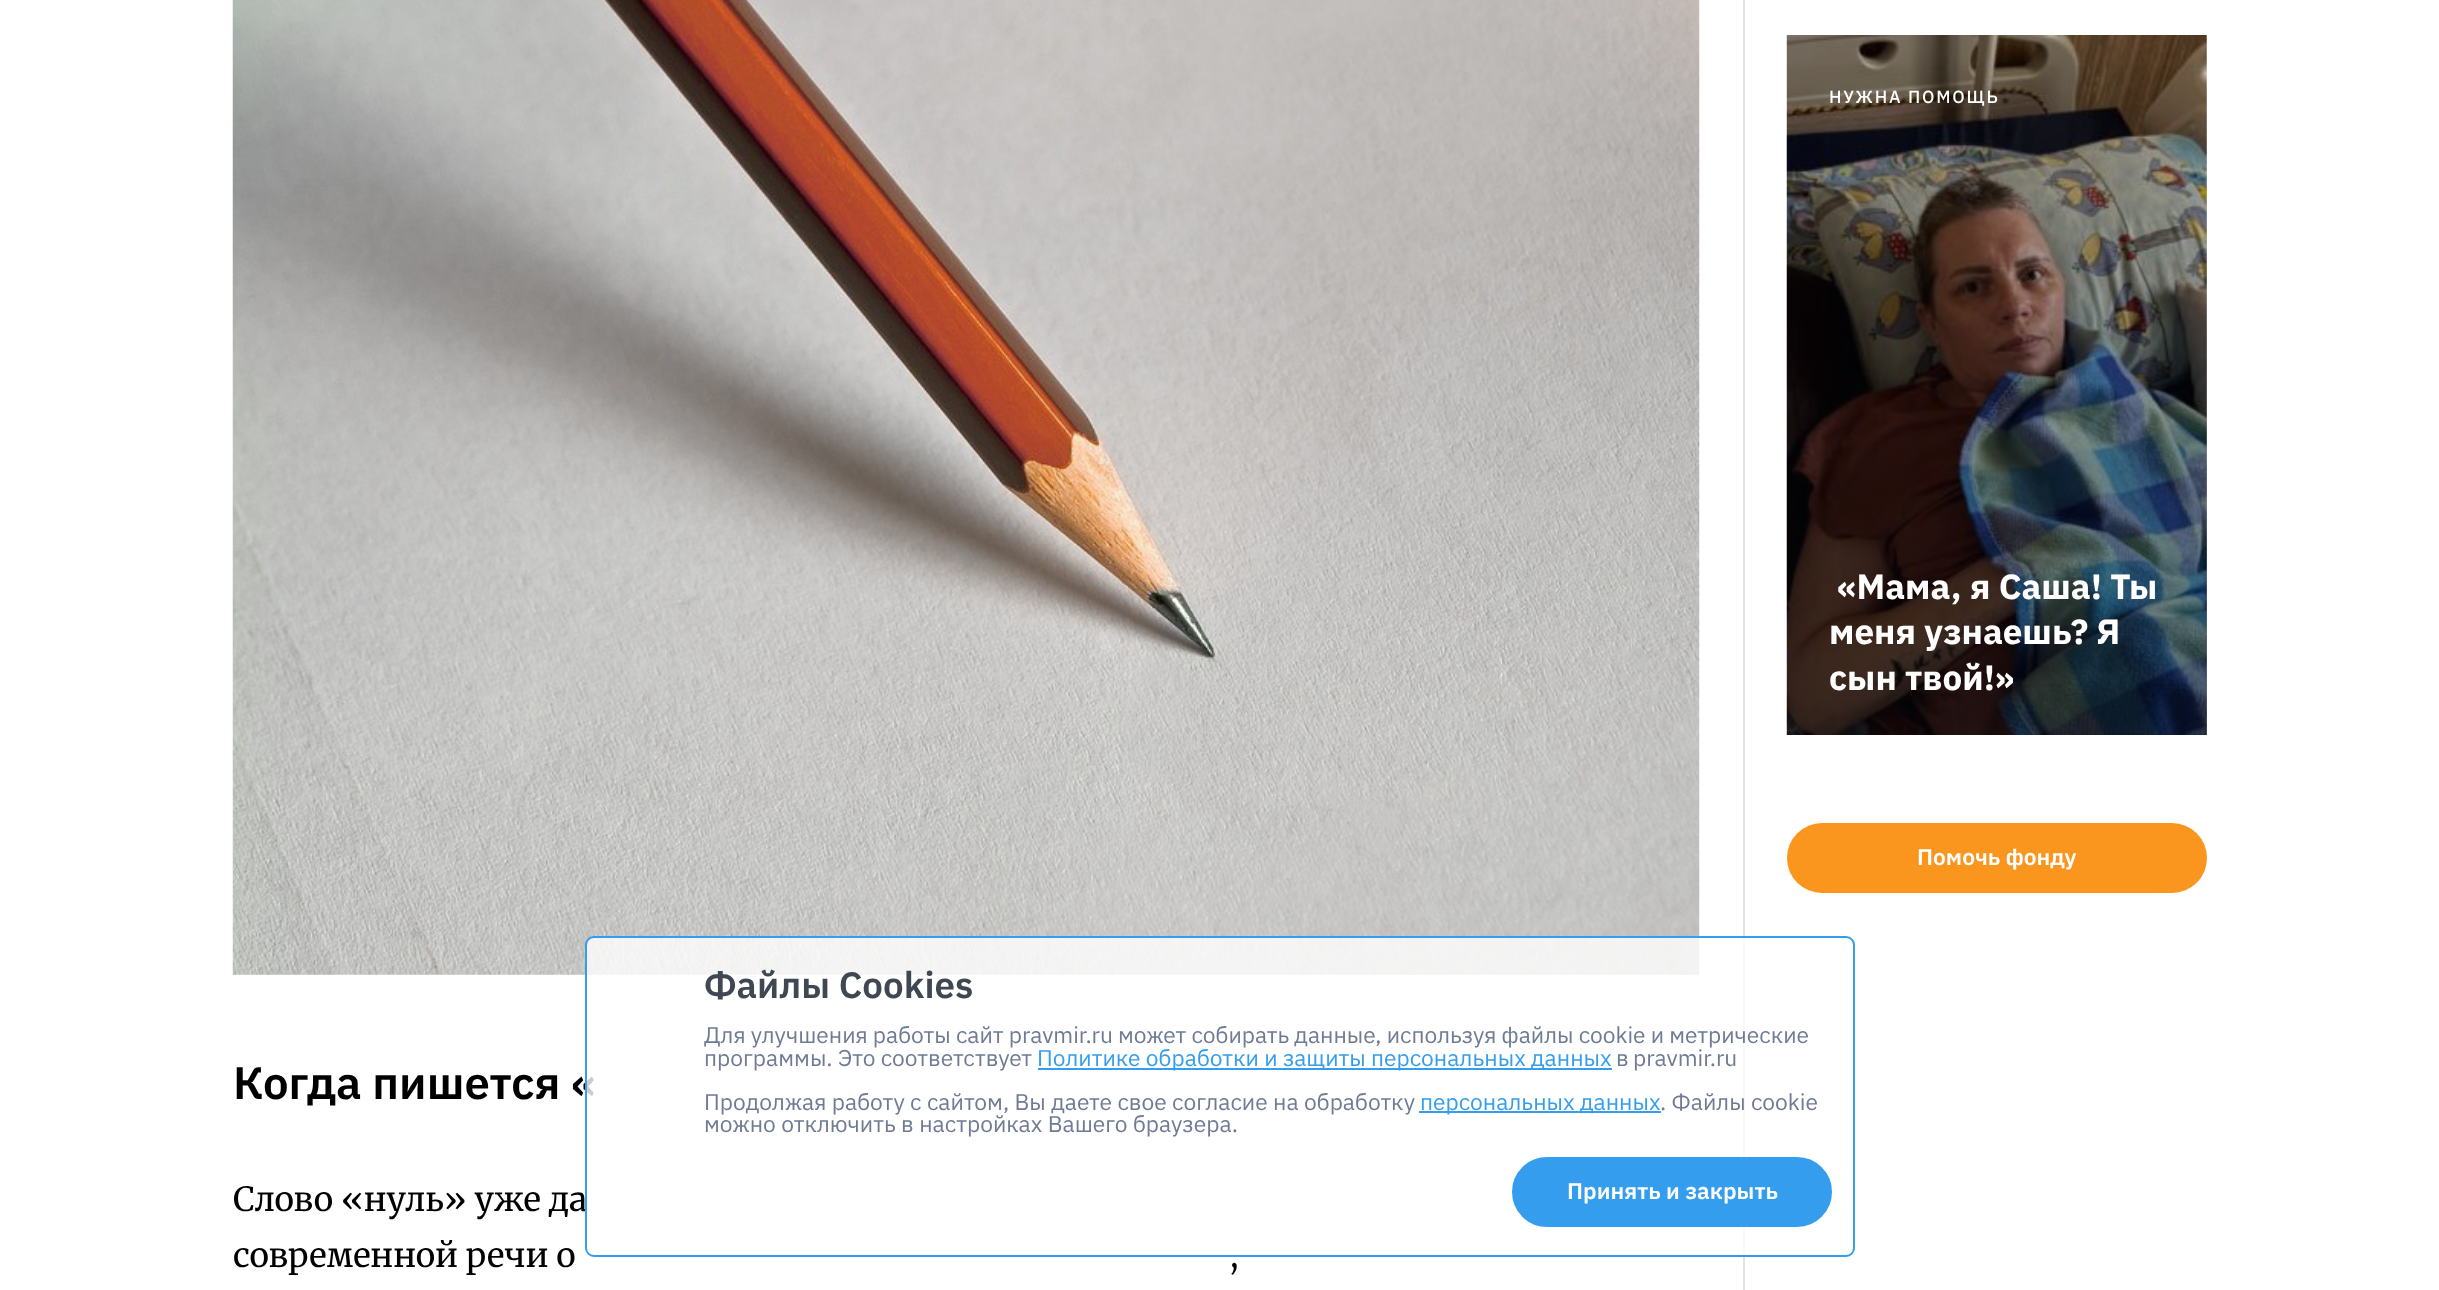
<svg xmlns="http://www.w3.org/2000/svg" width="2439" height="1290">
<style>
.a{font:500 17.5px IBM Plex Sans;letter-spacing:1.75px;fill:#fff}
.b{font:bold 35px IBM Plex Sans;fill:#fff}
.c{font:600 22.75px IBM Plex Sans;fill:#fff}
.d{font:600 45.5px IBM Plex Sans;fill:#000}
.e{font:33.25px Merriweather;fill:#000}
.f{font:600 36.75px IBM Plex Sans;fill:#3f4753}
.g{font:22.75px IBM Plex Sans;fill:#6e7b93}
.h{font:22.75px IBM Plex Sans;fill:#349dee}
</style>
<defs>
<linearGradient id="g1" gradientUnits="userSpaceOnUse" x1="1997" y1="35" x2="1997" y2="735"><stop offset="0" stop-color="#05050a" stop-opacity="0"/><stop offset="1" stop-color="#05050a" stop-opacity="0.5"/></linearGradient>
</defs>
<rect width="100%" height="100%" fill="#fff"/>
<image href="1.png" x="1786" y="35" width="421" height="700"/>
<path fill="url(#g1)" d="M1787 65h420v670H1787z"/>
<rect fill="#fa961d" x="1787" y="823" width="420" height="70" rx="35"/>
<path fill="#dfe1e7" d="M1743 0h2v1290H1743z"/>
<image href="2.png" x="232" y="0" width="1468" height="975"/>
<text class="a" x="1829" y="103">НУЖНА ПОМОЩЬ</text>
<text class="b" x="1837" y="599">«Мама, я Саша! Ты</text>
<text class="b" x="1829" y="644">меня узнаешь? Я</text>
<text class="b" x="1829" y="690">сын твой!»</text>
<text class="c" x="1917" y="865">Помочь фонду</text>
<text class="d" x="233" y="1099">Когда пишется «</text>
<text class="e" x="233" y="1211">Слово «нуль» уже да</text>
<text class="e" x="233" y="1267">современной речи о</text>
<text class="e" x="1230" y="1267">,</text>
<rect fill="#ffffffcc" stroke="#349dee" stroke-width="2" x="586" y="937" width="1268" height="319" rx="8"/>
<text class="f" x="704" y="998">Файлы Cookies</text>
<text class="g" x="704" y="1043" word-spacing="-0.25">Для улучшения работы сайт pravmir.ru может собирать данные, используя файлы cookie и метрические</text>
<text class="g" x="704" y="1066">программы. Это соответствует</text>
<path fill="#349dee" d="M1038 1068h574v2H1038z"/>
<text class="h" x="1037" y="1066">Политике обработки и защиты персональных данных</text>
<text class="g" x="1616" y="1066" word-spacing="-1">в pravmir.ru</text>
<text class="g" x="704" y="1110">Продолжая работу с сайтом, Вы даете свое согласие на обработку</text>
<path fill="#349dee" d="M1419 1111h242v2H1419z"/>
<text class="h" x="1420" y="1110">персональных данных</text>
<text class="g" x="1660" y="1110">. Файлы cookie</text>
<text class="g" x="704" y="1132">можно отключить в настройках Вашего браузера.</text>
<rect fill="#349dee" stroke="#349dee" stroke-width="2" x="1513" y="1158" width="318" height="68" rx="34"/>
<text class="c" x="1567" y="1199">Принять и закрыть</text>
</svg>
